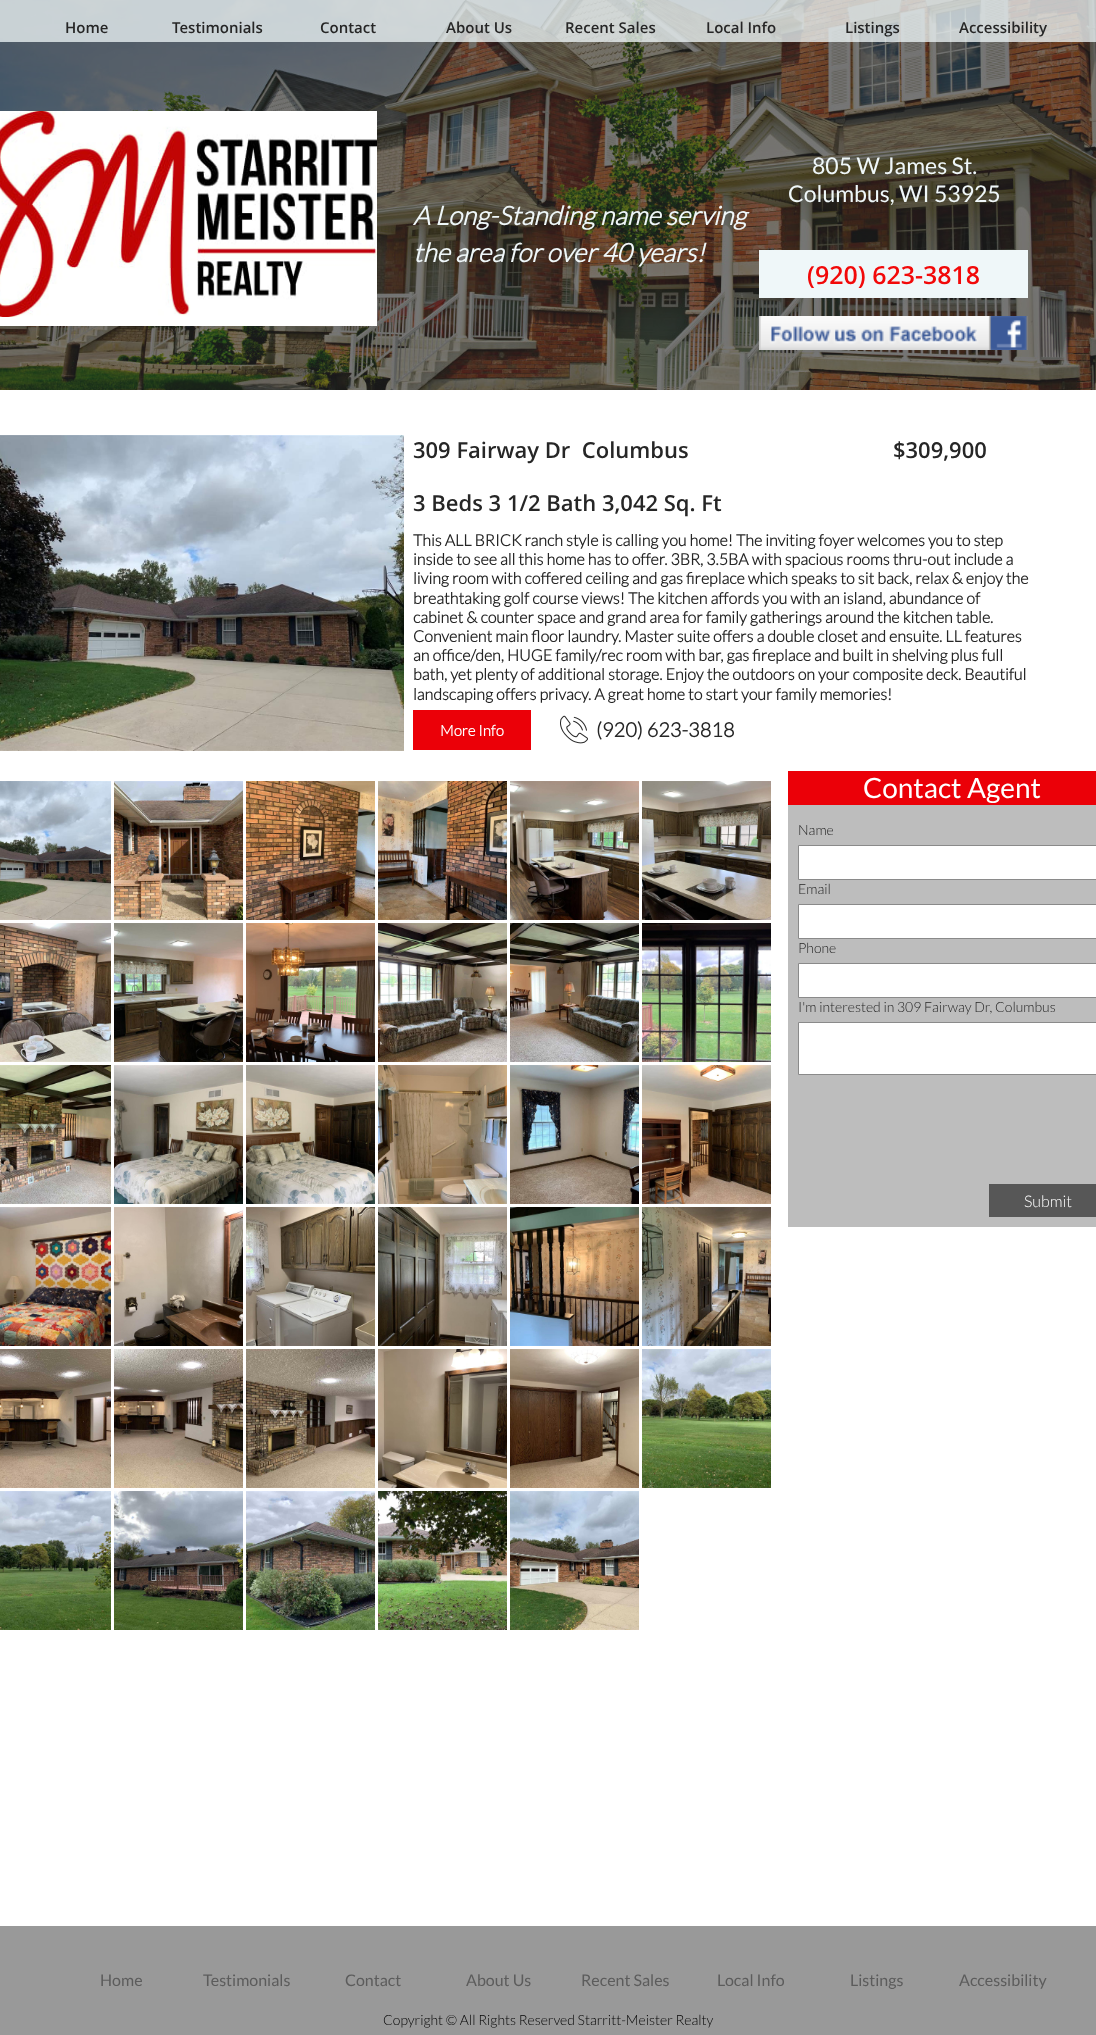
<svg xmlns="http://www.w3.org/2000/svg" width="1096" height="2035">
<style>
.a{font:600 15px Open Sans;fill:#262626}
.b{font:23px Lato;fill:#eff7f9}
.c{font:italic bold 26px Lato;fill:#eff7f9}
.d{font:600 25px Open Sans;fill:#f20909}
.e{font:600 22px Open Sans;fill:#262626}
.f{font:bold 16px Lato;fill:#262626}
.g{font:bold 15px Lato;fill:#fff}
.h{font:bold 20px Lato;fill:#262626}
.i{font:28px Lato;fill:#fff}
.j{font:300 14px Lato;fill:#262626}
.k{font:300 16px Lato;fill:#fff}
.l{font:16px Lato;fill:#5c5c5c}
.m{font:300 14px Lato;fill:#050505}
</style>
<rect width="100%" height="100%" fill="#fff"/>
<image href="1.png" x="0" y="0" width="1096" height="390"/>
<path fill="#eff7f9c2" d="M0 0h1096v42H0z"/>
<image href="2.png" x="0" y="111" width="377" height="206"/>
<path fill="#fff" d="M0 317h377v9H0z"/>
<path fill="#eff7f9" d="M759 250h269v48H759z"/>
<image href="3.png" x="759" y="316" width="269" height="34"/>
<image href="4.png" x="0" y="435" width="404" height="316"/>
<path fill="#eb0008" d="M413 710h118v40H413z"/>
<image href="5.png" x="560" y="715" width="28" height="29"/>
<image href="6.png" x="0" y="781" width="111" height="139"/>
<image href="7.png" x="114" y="781" width="129" height="139"/>
<image href="8.png" x="246" y="781" width="129" height="139"/>
<image href="9.png" x="378" y="781" width="129" height="139"/>
<image href="10.png" x="510" y="781" width="129" height="139"/>
<image href="11.png" x="642" y="781" width="129" height="139"/>
<image href="12.png" x="0" y="923" width="111" height="139"/>
<image href="13.png" x="114" y="923" width="129" height="139"/>
<image href="14.png" x="246" y="923" width="129" height="139"/>
<image href="15.png" x="378" y="923" width="129" height="139"/>
<image href="16.png" x="510" y="923" width="129" height="139"/>
<image href="17.png" x="642" y="923" width="129" height="139"/>
<image href="18.png" x="0" y="1065" width="111" height="139"/>
<image href="19.png" x="114" y="1065" width="129" height="139"/>
<image href="20.png" x="246" y="1065" width="129" height="139"/>
<image href="21.png" x="378" y="1065" width="129" height="139"/>
<image href="22.png" x="510" y="1065" width="129" height="139"/>
<image href="23.png" x="642" y="1065" width="129" height="139"/>
<image href="24.png" x="0" y="1207" width="111" height="139"/>
<image href="25.png" x="114" y="1207" width="129" height="139"/>
<image href="26.png" x="246" y="1207" width="129" height="139"/>
<image href="27.png" x="378" y="1207" width="129" height="139"/>
<image href="28.png" x="510" y="1207" width="129" height="139"/>
<image href="29.png" x="642" y="1207" width="129" height="139"/>
<image href="30.png" x="0" y="1349" width="111" height="139"/>
<image href="31.png" x="114" y="1349" width="129" height="139"/>
<image href="32.png" x="246" y="1349" width="129" height="139"/>
<image href="33.png" x="378" y="1349" width="129" height="139"/>
<image href="34.png" x="510" y="1349" width="129" height="139"/>
<image href="35.png" x="642" y="1349" width="129" height="139"/>
<image href="36.png" x="0" y="1491" width="111" height="139"/>
<image href="37.png" x="114" y="1491" width="129" height="139"/>
<image href="38.png" x="246" y="1491" width="129" height="139"/>
<image href="39.png" x="378" y="1491" width="129" height="139"/>
<image href="40.png" x="510" y="1491" width="129" height="139"/>
<path fill="#eb0008" d="M788 771h308v34H788z"/>
<path fill="#bdbdbd" d="M788 805h308v422H788z"/>
<path fill="#fff" stroke="#8a8a8a" d="M798.5 845.5h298v34H798.5z"/>
<path fill="#fff" stroke="#8a8a8a" d="M798.5 904.5h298v34H798.5z"/>
<path fill="#fff" stroke="#8a8a8a" d="M798.5 963.5h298v34H798.5z"/>
<path fill="#fff" stroke="#8a8a8a" d="M798.5 1022.5h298v52H798.5z"/>
<path fill="#575757" d="M989 1184h107v33H989z"/>
<path fill="#999" d="M0 1926h1096v109H0z"/>
<text class="a" x="65" y="33">Home</text>
<text class="a" x="172" y="33">Testimonials</text>
<text class="a" x="320" y="33">Contact</text>
<text class="a" x="446" y="33">About Us</text>
<text class="a" x="565" y="33">Recent Sales</text>
<text class="a" x="706" y="33">Local Info</text>
<text class="a" x="845" y="33">Listings</text>
<text class="a" x="959" y="33">Accessibility</text>
<text class="b" x="812" y="174">805 W James St.</text>
<text class="b" x="788" y="202">Columbus, WI 53925</text>
<text class="c" x="413" y="225">A Long-Standing name serving</text>
<text class="c" x="413" y="262">the area for over 40 years!</text>
<text class="d" x="807" y="284">(920) 623-3818</text>
<text class="e" xml:space="preserve" x="413" y="458">309 Fairway Dr  Columbus</text>
<text class="e" x="413" y="511">3 Beds 3 1/2 Bath 3,042 Sq. Ft</text>
<text class="e" x="893" y="458">$309,900</text>
<text class="f" x="413" y="546">This ALL BRICK ranch style is calling you home! The inviting foyer welcomes you to step</text>
<text class="f" x="413" y="565">inside to see all this home has to offer. 3BR, 3.5BA with spacious rooms thru-out include a</text>
<text class="f" x="413" y="584">living room with coffered ceiling and gas fireplace which speaks to sit back, relax &amp; enjoy the</text>
<text class="f" x="413" y="604">breathtaking golf course views! The kitchen affords you with an island, abundance of</text>
<text class="f" x="413" y="623">cabinet &amp; counter space and grand area for family gatherings around the kitchen table.</text>
<text class="f" x="413" y="642">Convenient main floor laundry. Master suite offers a double closet and ensuite. LL features</text>
<text class="f" x="413" y="661">an office/den, HUGE family/rec room with bar, gas fireplace and built in shelving plus full</text>
<text class="f" x="413" y="680">bath, yet plenty of additional storage. Enjoy the outdoors on your composite deck. Beautiful</text>
<text class="f" x="413" y="700">landscaping offers privacy. A great home to start your family memories!</text>
<text class="g" x="440" y="736">More Info</text>
<text class="h" x="596" y="737">(920) 623-3818</text>
<text class="i" x="863" y="798">Contact Agent</text>
<text class="j" x="798" y="835">Name</text>
<text class="j" x="798" y="894">Email</text>
<text class="j" x="798" y="953">Phone</text>
<text class="j" x="798" y="1012">I'm interested in 309 Fairway Dr, Columbus</text>
<text class="k" x="1024" y="1207">Submit</text>
<text class="l" x="100" y="1986">Home</text>
<text class="l" x="203" y="1986">Testimonials</text>
<text class="l" x="345" y="1986">Contact</text>
<text class="l" x="466" y="1986">About Us</text>
<text class="l" x="581" y="1986">Recent Sales</text>
<text class="l" x="717" y="1986">Local Info</text>
<text class="l" x="850" y="1986">Listings</text>
<text class="l" x="959" y="1986">Accessibility</text>
<text class="m" x="383" y="2025">Copyright © All Rights Reserved Starritt-Meister Realty</text>
</svg>
